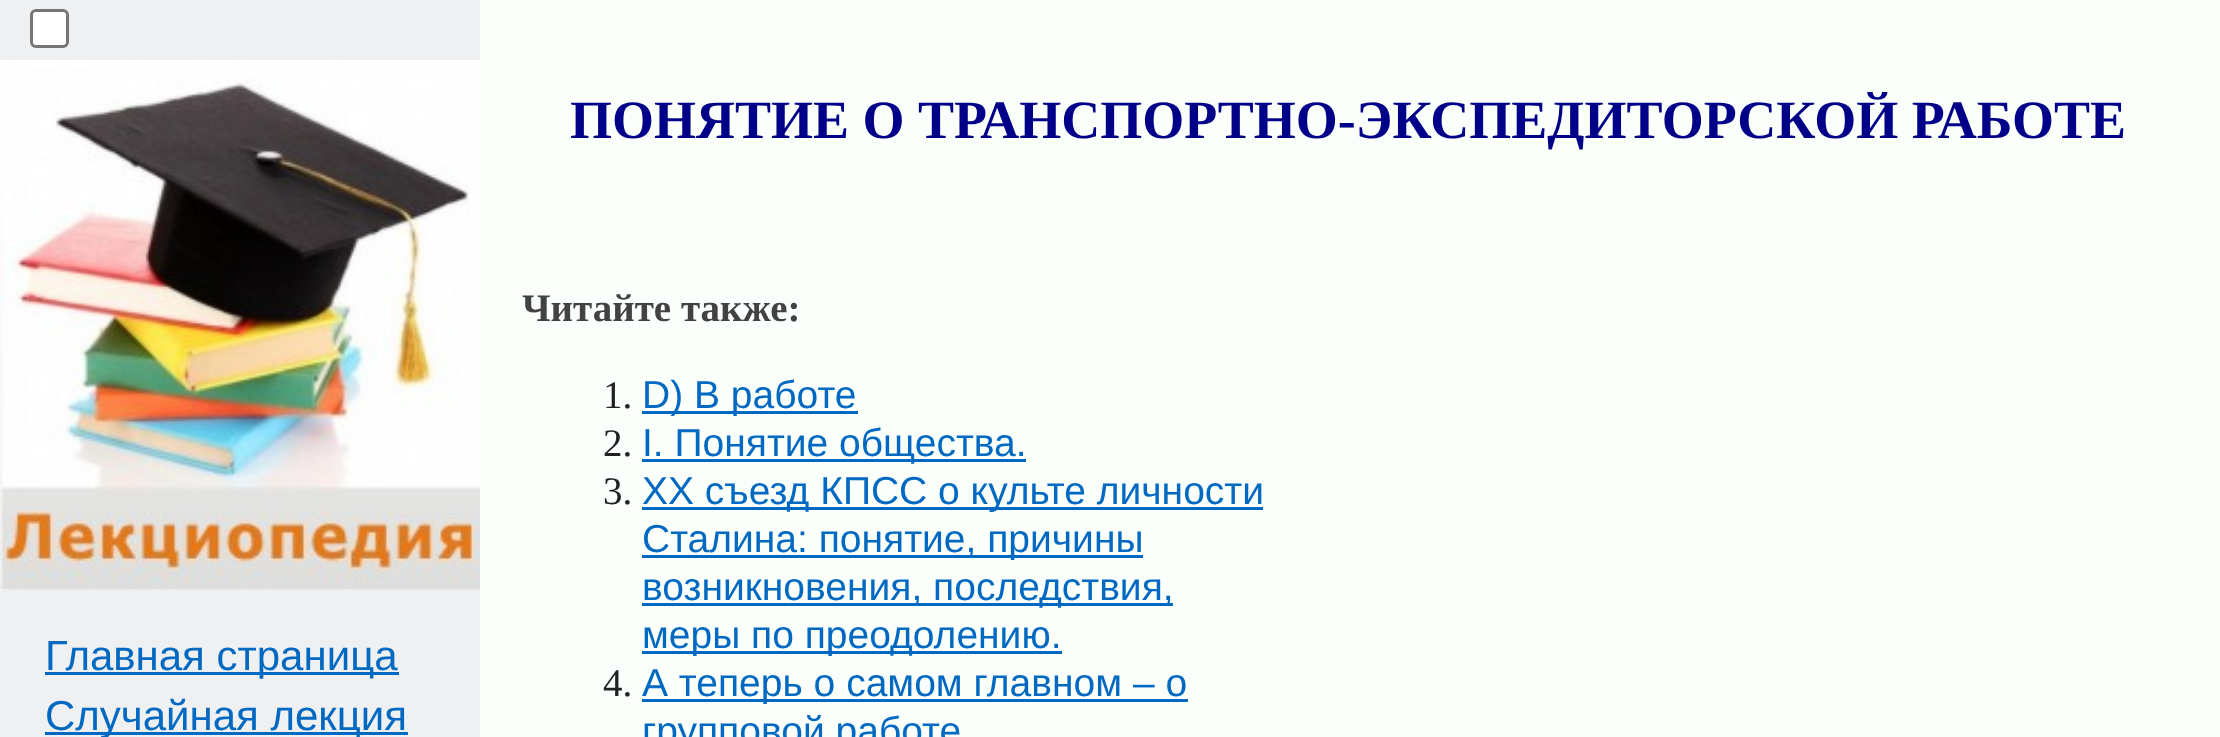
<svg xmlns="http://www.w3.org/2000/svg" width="2220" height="737">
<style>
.a{font:42px Liberation Sans;fill:#0169c2}
.b{font:bold 54px Liberation Serif;fill:#008}
.c{font:bold 39px Liberation Serif;fill:#424242}
.d{font:39px Liberation Serif;fill:#222}
.e{font:39px Liberation Sans;fill:#0169c2}
</style>
<rect width="100%" height="100%" fill="#eff0f2"/>
<rect fill="#fff" stroke="#767676" stroke-width="3" x="31.5" y="10.5" width="36" height="36" rx="4.5"/>
<image href="1.png" x="0" y="60" width="480" height="531"/>
<path fill="#0169c2" d="M45 672h354v3H45z"/>
<path fill="#0169c2" d="M45 732h363v3H45z"/>
<path fill="#fbfffb" d="M480 0h1740v737H480z"/>
<path fill="#0169c2" d="M642 411h216v3H642z"/>
<path fill="#0169c2" d="M642 459h384v3H642z"/>
<path fill="#0169c2" d="M642 507h621v3H642z"/>
<path fill="#0169c2" d="M642 555h501v3H642z"/>
<path fill="#0169c2" d="M642 603h531v3H642z"/>
<path fill="#0169c2" d="M642 651h420v3H642z"/>
<path fill="#0169c2" d="M642 699h546v3H642z"/>
<text class="a" x="45" y="670">Главная страница</text>
<text class="a" x="45" y="730">Случайная лекция</text>
<text class="b" x="570" y="138">ПОНЯТИЕ О ТРАНСПОРТНО-ЭКСПЕДИТОРСКОЙ РАБОТЕ</text>
<text class="c" x="522" y="321">Читайте также:</text>
<text class="d" x="603" y="408">1.</text>
<text class="e" x="642" y="408">D) В работе</text>
<text class="d" x="603" y="456">2.</text>
<text class="e" x="642" y="456">I. Понятие общества.</text>
<text class="d" x="603" y="504">3.</text>
<text class="e" x="642" y="504">XX съезд КПСС о культе личности</text>
<text class="e" x="642" y="552">Сталина: понятие, причины</text>
<text class="e" x="642" y="600">возникновения, последствия,</text>
<text class="e" x="642" y="648">меры по преодолению.</text>
<text class="d" x="603" y="696">4.</text>
<text class="e" x="642" y="696">А теперь о самом главном – о</text>
<text class="e" x="642" y="744">групповой работе</text>
</svg>
